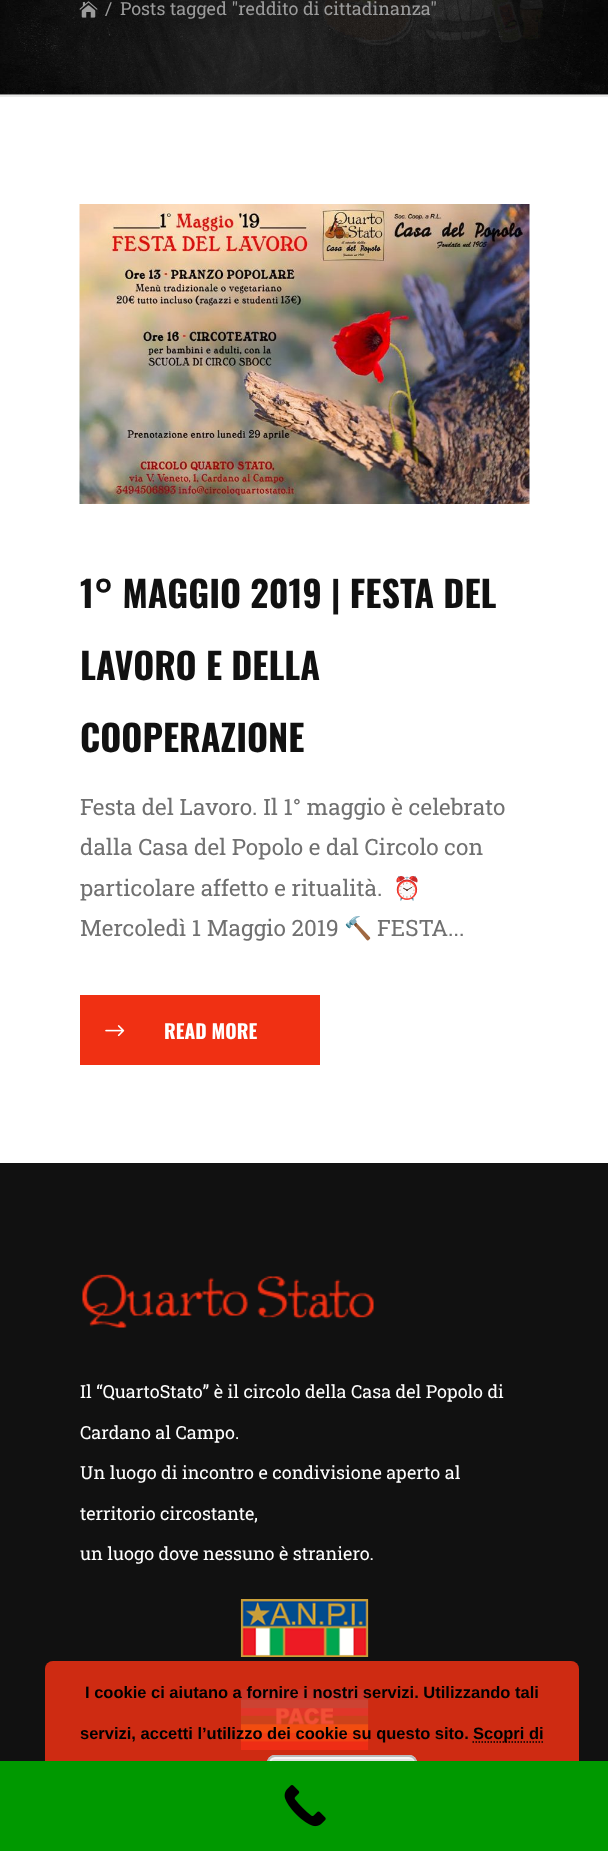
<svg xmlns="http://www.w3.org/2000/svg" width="608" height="1851">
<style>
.a{font:18px Roboto Slab;fill:#9b9b9b}
.b{font:bold 36px Oswald;fill:#111}
.c{font:22.5px Roboto Slab;fill:#707070}
.d{font:22.5px Noto Color Emoji;fill:#707070}
.e{font:bold 19.5px Oswald;fill:#fff}
.f{font:18px Roboto Slab;fill:#fff}
.g{font:bold 16.5px Liberation Sans;fill:#000}
</style>
<rect width="100%" height="100%" fill="#fff"/>
<path fill="#e9e9e8" d="M0 95h608v2H0z"/>
<image href="1.png" x="0" y="0" width="608" height="95"/>
<image href="2.png" x="79" y="1" width="19" height="17"/>
<image href="3.png" x="79" y="204" width="451" height="300"/>
<path fill="#f03013" d="M80 995h240v70H80z"/>
<image href="4.png" x="105" y="1025" width="20" height="12"/>
<path fill="#111" d="M0 1163h608v598H0z"/>
<image href="5.png" x="82" y="1274" width="292" height="54"/>
<image href="6.png" x="240" y="1599" width="129" height="58"/>
<image href="7.png" x="240" y="1689" width="129" height="61"/>
<rect fill="#f03013d9" x="45" y="1661" width="534" height="145" rx="8"/>
<path fill="none" stroke="#000" stroke-width="1.5" stroke-dasharray="1.5 1.5" d="M472.5 1742h72"/>
<rect fill="#e3e3e3" x="267" y="1755" width="150" height="36" rx="8"/>
<rect fill="none" stroke="#f6f6f6" stroke-width="2" x="270" y="1758" width="145" height="31" rx="5"/>
<rect fill="none" stroke="#bbb" stroke-width="2" x="268" y="1756" width="148" height="34" rx="7"/>
<path fill="#090" d="M0 1761h608v90H0z"/>
<image href="8.png" x="284" y="1785" width="42" height="42"/>
<text class="a" x="105" y="15">/</text>
<text class="a" x="120" y="15">Posts tagged "reddito di cittadinanza"</text>
<text class="b" x="80" y="608">1° MAGGIO 2019 | FESTA DEL</text>
<text class="b" x="80" y="680">LAVORO E DELLA</text>
<text class="b" x="80" y="752">COOPERAZIONE</text>
<text class="c" x="80" y="815">Festa del Lavoro. Il 1° maggio è celebrato</text>
<text class="c" x="80" y="855">dalla Casa del Popolo e dal Circolo con</text>
<text class="c" x="80" y="896">particolare affetto e ritualità.</text>
<text class="d" x="393" y="896">⏰</text>
<text class="c" x="80" y="936">Mercoledì 1 Maggio 2019</text>
<text class="d" x="344" y="936">🔨</text>
<text class="c" x="377" y="936">FESTA...</text>
<text class="e" x="164" y="1039">READ MORE</text>
<text class="f" x="80" y="1398">Il “QuartoStato” è il circolo della Casa del Popolo di</text>
<text class="f" x="80" y="1439">Cardano al Campo.</text>
<text class="f" x="80" y="1479">Un luogo di incontro e condivisione aperto al</text>
<text class="f" x="80" y="1520">territorio circostante,</text>
<text class="f" x="80" y="1560">un luogo dove nessuno è straniero.</text>
<text class="g" x="85" y="1698">I cookie ci aiutano a fornire i nostri servizi. Utilizzando tali</text>
<text class="g" x="80" y="1739">servizi, accetti l’utilizzo dei cookie su questo sito.</text>
<text class="g" x="473" y="1739">Scopri di</text>
</svg>
